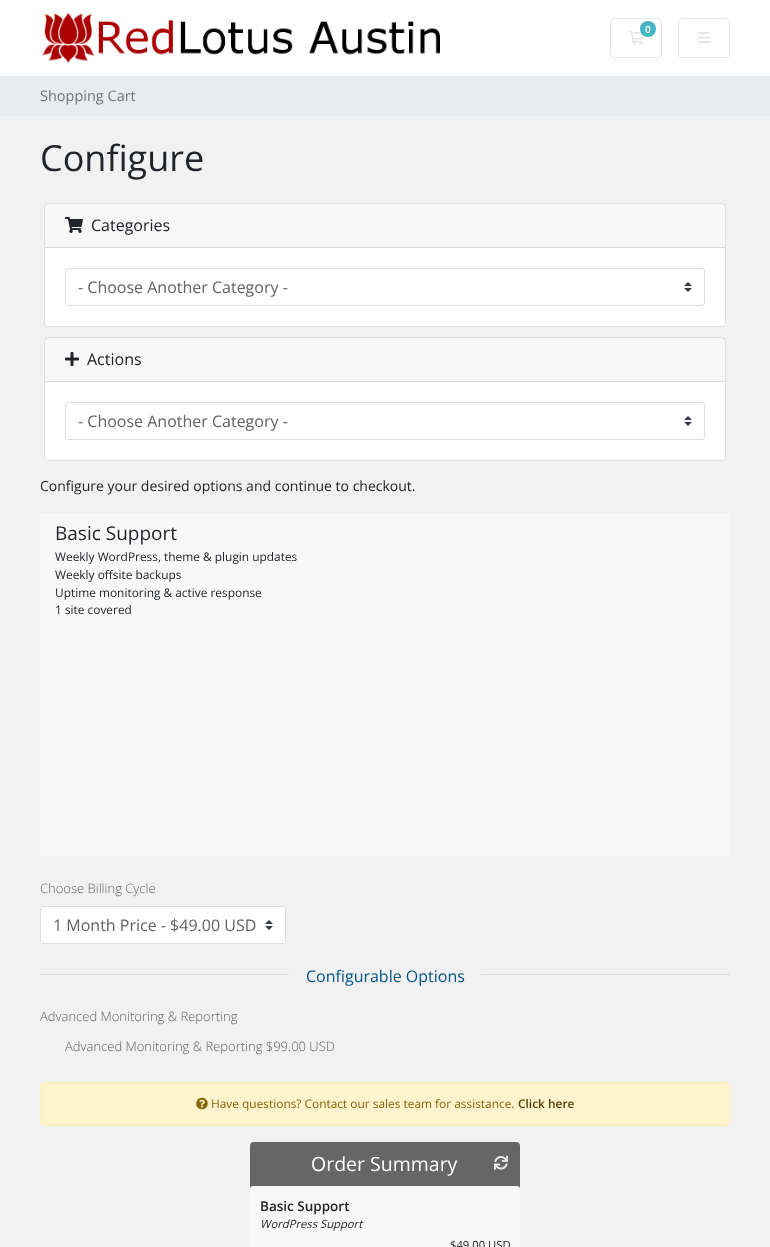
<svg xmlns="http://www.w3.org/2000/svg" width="770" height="1247">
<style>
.a{font:600 10px Open Sans;fill:#fff}
.b{font:14.5px Open Sans;fill:#6c757d}
.c{font:36px Open Sans;fill:#212529}
.d{font:16px Open Sans;fill:#212529}
.e{font:16px Open Sans;fill:#626262}
.f{font:14px Open Sans;fill:#212529}
.g{font:19px Open Sans;fill:#212529}
.h{font:11.9px Open Sans;fill:#212529}
.i{font:300 13px Open Sans;fill:#626262}
.j{font:16px Open Sans;fill:#058}
.k{font:11.9px Open Sans;fill:#856404}
.l{font:600 11.9px Open Sans;fill:#533f03}
.m{font:19.5px Open Sans;fill:#fff}
.n{font:600 13.5px Open Sans;fill:#212529}
.o{font:italic 11.25px Open Sans;fill:#212529}
.p{font:11.25px Open Sans;fill:#212529}
</style>
<rect width="100%" height="100%" fill="#f1f1f1"/>
<path fill="#fff" d="M0 0h770v76H0z"/>
<image href="1.png" x="42" y="13" width="398" height="50"/>
<rect fill="none" stroke="#e5e5e5" x="610.5" y="18.5" width="51" height="39" rx="3.5"/>
<image href="2.png" x="628" y="30" width="16" height="15"/>
<circle fill="#17a2b8cc" cx="648" cy="29" r="8"/>
<rect fill="none" stroke="#e5e5e5" x="678.5" y="18.5" width="51" height="39" rx="3.5"/>
<image href="3.png" x="698" y="32" width="13" height="11"/>
<path fill="#e9ecef" d="M0 76h770v40H0z"/>
<rect fill="#fff" x="44" y="203" width="682" height="124" rx="4"/>
<rect fill="none" stroke="#0000001f" x="44.5" y="203.5" width="681" height="123" rx="3.5"/>
<path fill="#00000008" d="M45 204h680v43H45z"/>
<path fill="#d8d8d8" d="M45 247h680v1H45z"/>
<image href="4.png" x="65" y="217" width="18" height="16"/>
<image href="5.png" x="684" y="282" width="8" height="10"/>
<rect fill="none" stroke="#ddd" x="65.5" y="268.5" width="639" height="37" rx="2.5"/>
<rect fill="#fff" x="44" y="337" width="682" height="124" rx="4"/>
<rect fill="none" stroke="#0000001f" x="44.5" y="337.5" width="681" height="123" rx="3.5"/>
<path fill="#00000008" d="M45 338h680v43H45z"/>
<path fill="#d8d8d8" d="M45 381h680v1H45z"/>
<image href="6.png" x="65" y="352" width="14" height="14"/>
<image href="5.png" x="684" y="416" width="8" height="10"/>
<rect fill="none" stroke="#ddd" x="65.5" y="402.5" width="639" height="37" rx="2.5"/>
<path fill="#f8f8f8" d="M40 513h690v343H40z"/>
<rect fill="#fff" x="40" y="906" width="246" height="38" rx="3"/>
<image href="5.png" x="265" y="920" width="8" height="10"/>
<rect fill="none" stroke="#ddd" x="40.5" y="906.5" width="245" height="37" rx="2.5"/>
<path fill="#ddd" d="M40 974h690v1H40z"/>
<path fill="#f1f1f1" d="M289 974h192v1H289z"/>
<rect fill="#fff3cd" stroke="#ffeeba" x="40.5" y="1082.5" width="689" height="43" rx="3.5"/>
<image href="7.png" x="196" y="1097" width="12" height="13"/>
<rect fill="#666" x="250" y="1142" width="270" height="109" rx="4"/>
<image href="8.png" x="494" y="1155" width="14" height="15"/>
<rect fill="#f8f8f8" x="250" y="1186" width="270" height="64" rx="3"/>
<text class="a" x="645" y="33">0</text>
<text class="b" x="40" y="101">Shopping Cart</text>
<text class="c" x="40" y="171">Configure</text>
<text class="d" x="91" y="231">Categories</text>
<text class="e" x="78" y="293">- Choose Another Category -</text>
<text class="d" x="87" y="365">Actions</text>
<text class="e" x="78" y="427">- Choose Another Category -</text>
<text class="f" x="40" y="491">Configure your desired options and continue to checkout.</text>
<text class="g" x="55" y="540">Basic Support</text>
<text class="h" x="55" y="561">Weekly WordPress, theme &amp; plugin updates</text>
<text class="h" x="55" y="579">Weekly offsite backups</text>
<text class="h" x="55" y="597">Uptime monitoring &amp; active response</text>
<text class="h" x="55" y="614">1 site covered</text>
<text class="i" x="40" y="893">Choose Billing Cycle</text>
<text class="e" x="53" y="931">1 Month Price - $49.00 USD</text>
<text class="j" x="306" y="982">Configurable Options</text>
<text class="i" x="40" y="1021">Advanced Monitoring &amp; Reporting</text>
<text class="i" x="65" y="1051">Advanced Monitoring &amp; Reporting $99.00 USD</text>
<text class="k" x="211" y="1108">Have questions? Contact our sales team for assistance.</text>
<text class="l" x="518" y="1108">Click here</text>
<text class="m" x="311" y="1171">Order Summary</text>
<text class="n" x="260" y="1211">Basic Support</text>
<text class="o" x="260" y="1228">WordPress Support</text>
<text class="p" x="450" y="1249">$49.00 USD</text>
</svg>
